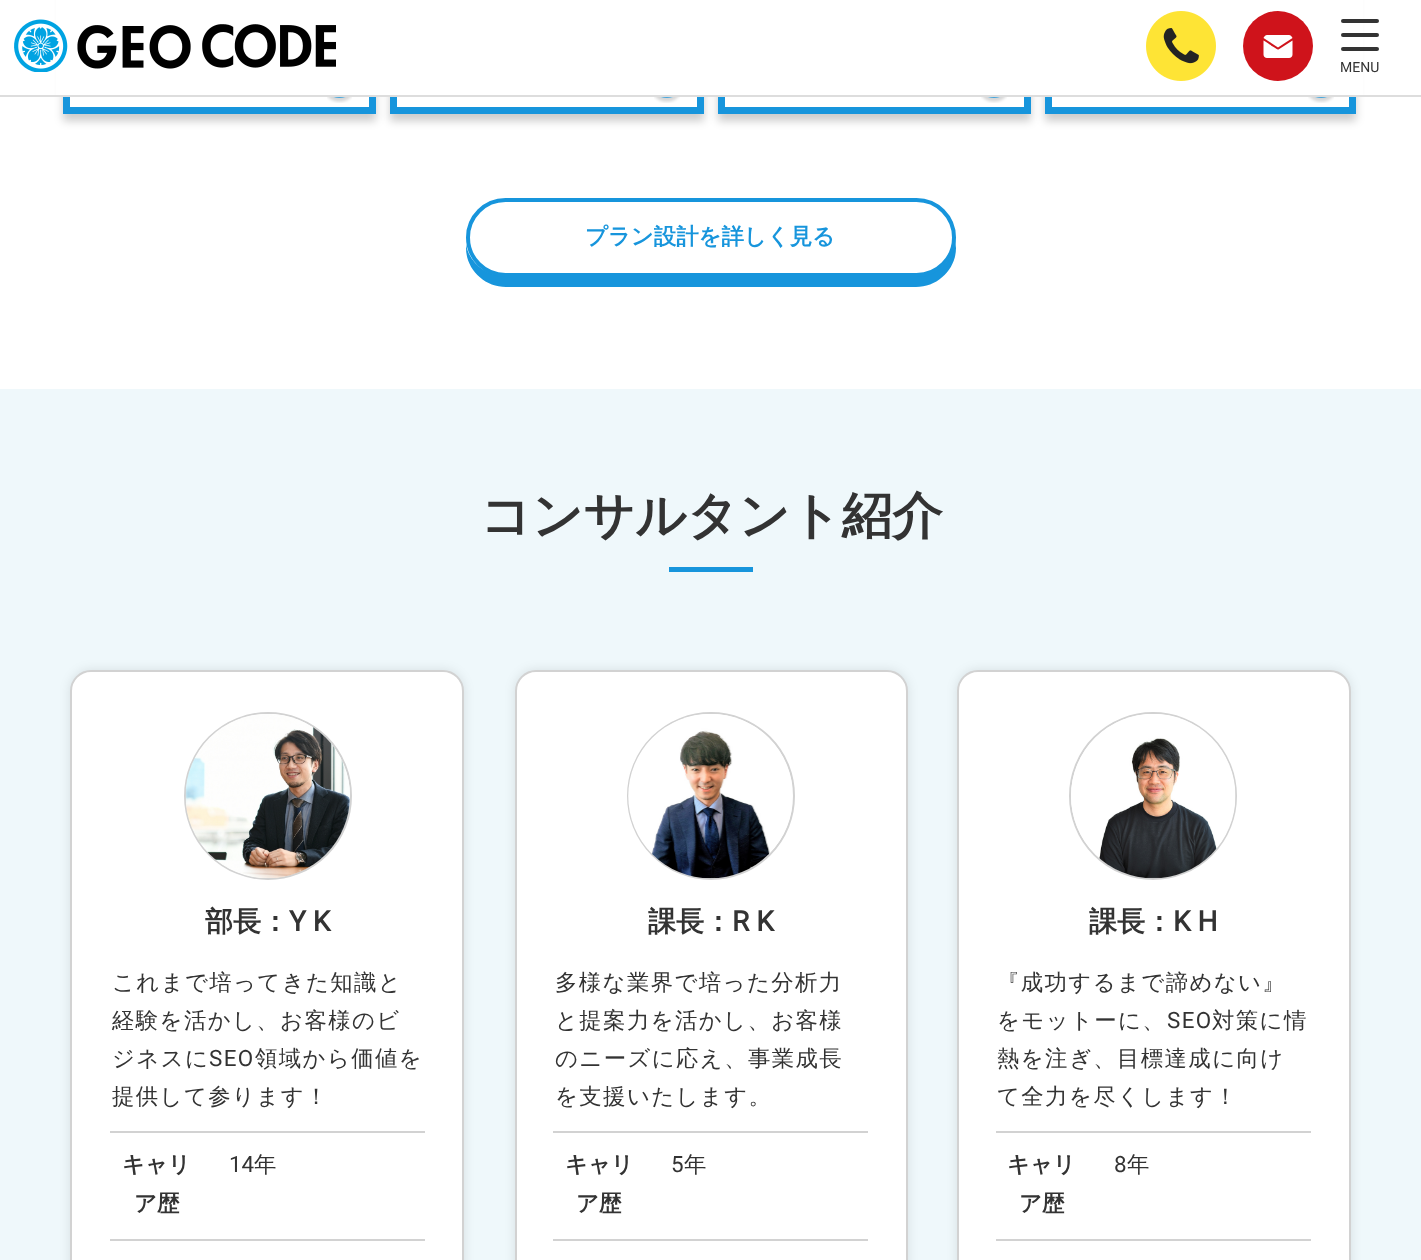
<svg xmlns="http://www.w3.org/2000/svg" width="1421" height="1260">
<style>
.a{font:14px Roboto;fill:#333}
.b{font:bold 22.4px WenQuanYi Zen Hei;fill:#1795dc}
.c{font:bold 50.5px WenQuanYi Zen Hei;fill:#333}
.d{font:bold 28px WenQuanYi Zen Hei;fill:#333}
.e{font:bold 28px Roboto;fill:#333}
.f{font:500 22.4px WenQuanYi Zen Hei;letter-spacing:1.4px;fill:#333}
.g{font:22.4px Roboto;letter-spacing:1.4px;fill:#333}
.h{font:bold 22.4px WenQuanYi Zen Hei;fill:#333}
.i{font:22.4px Roboto;fill:#333}
.j{font:500 22.4px WenQuanYi Zen Hei;fill:#333}
</style>
<rect width="100%" height="100%" fill="#fff"/>
<path fill="#00000033" filter="blur(4px)" d="M63 -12h313v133H63z"/>
<path fill="#fff" d="M70 97h299v10H70z"/>
<path fill="none" stroke="#1795dc" stroke-width="7" d="M66.5 -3.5h306v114H66.5z"/>
<path fill="#00000033" filter="blur(4px)" d="M390 -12h314v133H390z"/>
<path fill="#fff" d="M397 97h300v10H397z"/>
<path fill="none" stroke="#1795dc" stroke-width="7" d="M393.5 -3.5h307v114H393.5z"/>
<path fill="#00000033" filter="blur(4px)" d="M718 -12h313v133H718z"/>
<path fill="#fff" d="M725 97h299v10H725z"/>
<path fill="none" stroke="#1795dc" stroke-width="7" d="M721.5 -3.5h306v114H721.5z"/>
<path fill="#00000033" filter="blur(4px)" d="M1045 -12h311v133H1045z"/>
<path fill="#fff" d="M1052 97h297v10H1052z"/>
<path fill="none" stroke="#1795dc" stroke-width="7" d="M1048.5 -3.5h304v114H1048.5z"/>
<path fill="#fff" d="M56 0h1307v95H56z"/>
<path fill="#ddd" d="M0 95h1421v2H0z"/>
<image href="1.png" x="14" y="19" width="322" height="53"/>
<image href="2.png" x="1146" y="11" width="70" height="70"/>
<circle fill="#cf131b" cx="1278" cy="46" r="35"/>
<path fill="#fff" d="M1292.5 38c-.5-1.5-2-3-3.5-3h-22c-1.5 0-3 1.5-3.5 3l14.5 9.5z"/>
<path fill="#fff" d="M1278.5 49.5c-1 .5-13-8-15-9v14c0 2 1.5 3.5 3.5 3.5h22c2 0 3.5-1.5 3.5-3.5v-14z"/>
<rect fill="#333" x="1341" y="19" width="38" height="4" rx="2"/>
<rect fill="#333" x="1341" y="33" width="38" height="4" rx="2"/>
<rect fill="#333" x="1341" y="47" width="38" height="4" rx="2"/>
<image href="3.png" x="327" y="97" width="25" height="6"/>
<image href="4.png" x="654" y="97" width="26" height="6"/>
<image href="5.png" x="981" y="97" width="26" height="6"/>
<image href="6.png" x="1308" y="97" width="26" height="6"/>
<path fill="#1795dc" d="M466 244v4c0 21 18 39 40 39h410c22 0 40-18 40-39l-1-8c-1 21-18 36-39 36h-411c-19 0-36-13-39-32z"/>
<rect fill="#fff" stroke="#1795dc" stroke-width="4" x="468" y="200" width="486" height="75" rx="37.5"/>
<path fill="#eff8fb" d="M0 389h1421v871H0z"/>
<path fill="#1795dc" d="M669 567h84v5H669z"/>
<rect fill="#0000001a" filter="blur(5.5px)" x="70" y="670" width="394" height="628" rx="21"/>
<rect fill="#fff" stroke="#d2d2d2" stroke-width="2" x="71" y="671" width="392" height="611" rx="20"/>
<circle fill="none" stroke="#d2d2d2" stroke-width="2" cx="268" cy="796" r="83"/>
<image href="7.png" x="185" y="714" width="165" height="164"/>
<path fill="#d2d2d2" d="M110 1131h315v2H110z"/>
<path fill="#d2d2d2" d="M110 1239h315v2H110z"/>
<rect fill="#0000001a" filter="blur(5.5px)" x="515" y="670" width="393" height="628" rx="21"/>
<rect fill="#fff" stroke="#d2d2d2" stroke-width="2" x="516" y="671" width="391" height="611" rx="20"/>
<circle fill="none" stroke="#d2d2d2" stroke-width="2" cx="711" cy="796" r="83"/>
<image href="8.png" x="628" y="714" width="164" height="165"/>
<path fill="#d2d2d2" d="M553 1131h315v2H553z"/>
<path fill="#d2d2d2" d="M553 1239h315v2H553z"/>
<rect fill="#0000001a" filter="blur(5.5px)" x="957" y="670" width="394" height="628" rx="21"/>
<rect fill="#fff" stroke="#d2d2d2" stroke-width="2" x="958" y="671" width="392" height="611" rx="20"/>
<circle fill="none" stroke="#d2d2d2" stroke-width="2" cx="1153" cy="796" r="83"/>
<image href="9.png" x="1071" y="714" width="165" height="165"/>
<path fill="#d2d2d2" d="M996 1131h315v2H996z"/>
<path fill="#d2d2d2" d="M996 1239h315v2H996z"/>
<text class="a" x="1340" y="72">MENU</text>
<text class="b" x="585" y="244">プラン設計を詳しく見る</text>
<text class="c" x="480" y="533">コンサルタント紹介</text>
<text class="d" x="205" y="931">部長：</text>
<text class="e" x="289" y="931">Y K</text>
<text class="f" x="112" y="990">これまで培ってきた知識と</text>
<text class="f" x="112" y="1028">経験を活かし、お客様のビ</text>
<text class="f" x="112" y="1066">ジネスに</text>
<text class="g" x="209" y="1066">SEO</text>
<text class="f" x="255" y="1066">領域から価値を</text>
<text class="f" x="112" y="1104">提供して参ります！</text>
<text class="h" x="122" y="1172">キャリ</text>
<text class="h" x="134" y="1211">ア歴</text>
<text class="i" x="229" y="1172">14</text>
<text class="j" x="254" y="1172">年</text>
<text class="d" x="648" y="931">課長：</text>
<text class="e" x="732" y="931">R K</text>
<text class="f" x="555" y="990">多様な業界で培った分析力</text>
<text class="f" x="555" y="1028">と提案力を活かし、お客様</text>
<text class="f" x="555" y="1066">のニーズに応え、事業成長</text>
<text class="f" x="555" y="1104">を支援いたします。</text>
<text class="h" x="565" y="1172">キャリ</text>
<text class="h" x="576" y="1211">ア歴</text>
<text class="i" x="671" y="1172">5</text>
<text class="j" x="684" y="1172">年</text>
<text class="d" x="1089" y="931">課長：</text>
<text class="e" x="1173" y="931">K H</text>
<text class="f" x="997" y="990">『成功するまで諦めない』</text>
<text class="f" x="997" y="1028">をモットーに、</text>
<text class="g" x="1167" y="1028">SEO</text>
<text class="f" x="1212" y="1028">対策に情</text>
<text class="f" x="997" y="1066">熱を注ぎ、目標達成に向け</text>
<text class="f" x="997" y="1104">て全力を尽くします！</text>
<text class="h" x="1007" y="1172">キャリ</text>
<text class="h" x="1019" y="1211">ア歴</text>
<text class="i" x="1114" y="1172">8</text>
<text class="j" x="1127" y="1172">年</text>
</svg>
